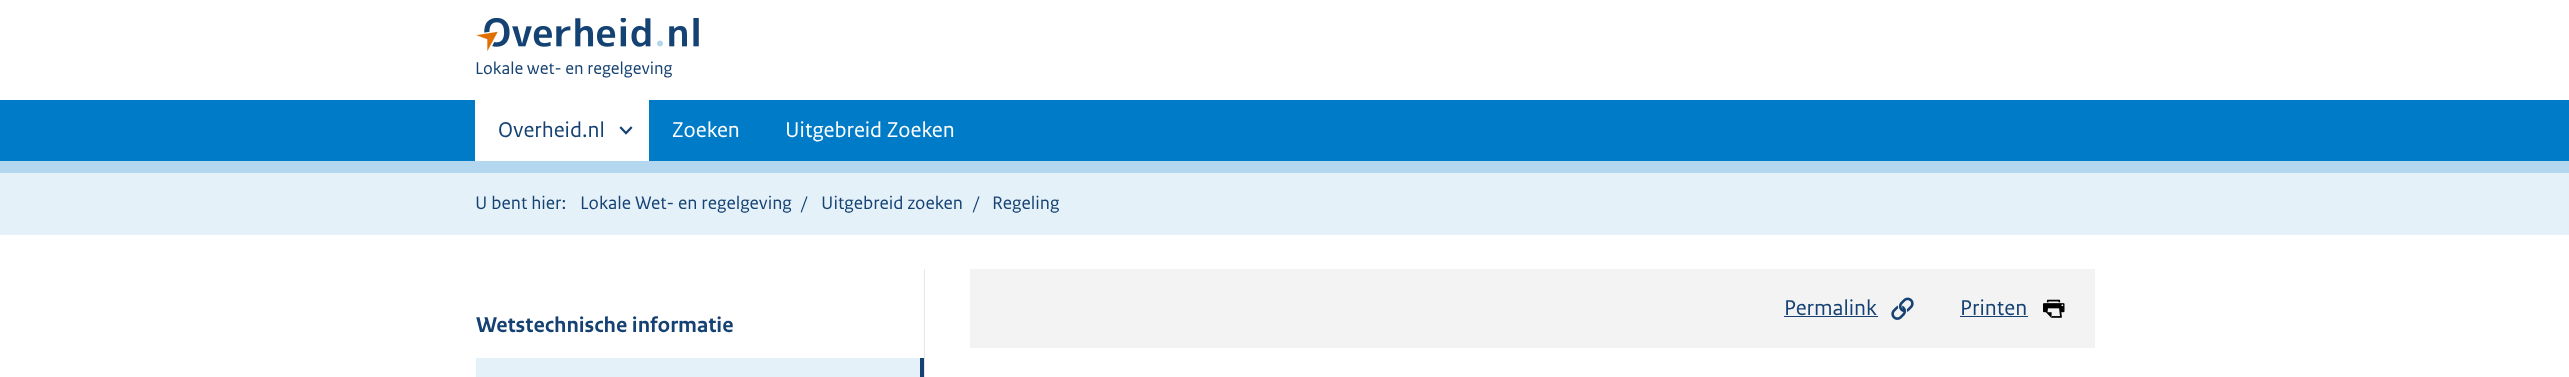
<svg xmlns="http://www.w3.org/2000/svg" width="2569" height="377">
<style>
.a{font:18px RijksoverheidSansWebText;fill:#154273}
.b{font:22.5px RijksoverheidSansWebText;fill:#154273}
.c{font:22.5px RijksoverheidSansWebText;fill:#fff}
.d{font:19.1px RijksoverheidSansWebText;fill:#154273}
.e{font:bold 22.5px RijksoverheidSansWebText;fill:#154273}
</style>
<rect width="100%" height="100%" fill="#fff"/>
<path fill="#b2d7ee" d="M0 161h2569v12H0z"/>
<image href="1.png" x="476" y="18" width="223" height="33"/>
<path fill="#007bc7" d="M0 100h2569v61H0z"/>
<path fill="#fff" d="M475 100h174v61H475z"/>
<image href="2.png" x="619" y="126" width="14" height="9"/>
<path fill="#e5f1f9" d="M0 173h2569v62H0z"/>
<path fill="#f3f3f3" d="M970 269h1125v79H970z"/>
<path fill="#154273" d="M1784 316h94v1H1784z"/>
<image href="3.png" x="1891" y="297" width="23" height="23"/>
<path fill="#154273" d="M1960 316h68v1H1960z"/>
<image href="4.png" x="2043" y="299" width="22" height="19"/>
<path fill="#e6e6e6" d="M925 269v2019l-1-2v-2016z"/>
<path fill="#154273" d="M920 358h4v19H920z"/>
<path fill="#e5f1f9" d="M476 358h444v19H476z"/>
<text class="a" x="475" y="74">Lokale wet- en regelgeving</text>
<text class="b" x="498" y="137">Overheid.nl</text>
<text class="c" x="672" y="137">Zoeken</text>
<text class="c" x="785" y="137">Uitgebreid Zoeken</text>
<text class="d" x="475" y="209">U bent hier:</text>
<text class="d" x="580" y="209">Lokale Wet- en regelgeving</text>
<text class="d" x="801" y="209">/</text>
<text class="d" x="821" y="209">Uitgebreid zoeken</text>
<text class="d" x="973" y="209">/</text>
<text class="d" x="992" y="209">Regeling</text>
<text class="b" x="1784" y="315">Permalink</text>
<text class="b" x="1960" y="315">Printen</text>
<text class="e" x="476" y="332">Wetstechnische informatie</text>
</svg>
